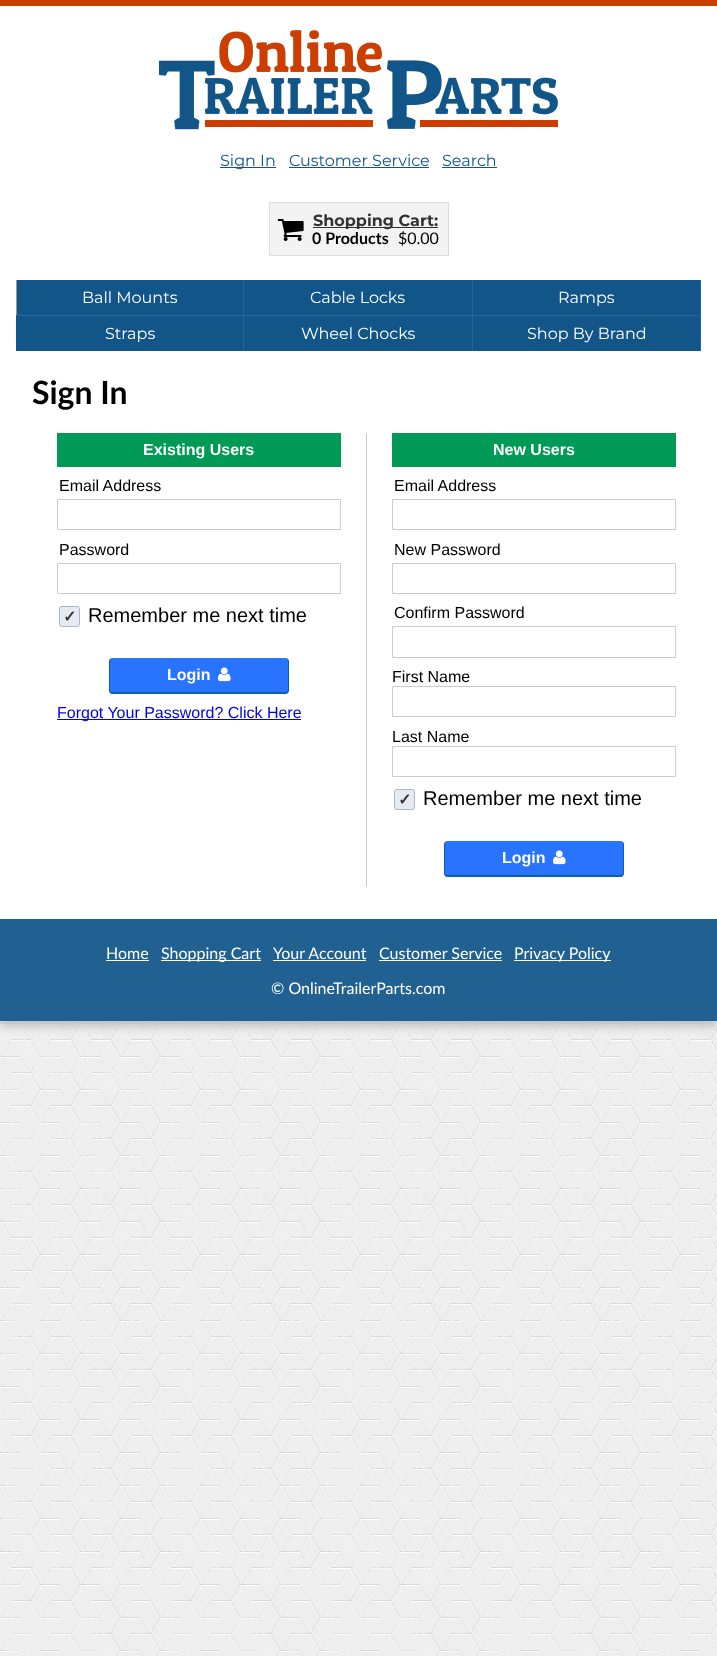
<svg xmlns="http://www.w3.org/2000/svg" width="717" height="1656">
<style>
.a{font:16px Montserrat;fill:#125689}
.b{font:bold 16px Montserrat;fill:#333}
.c{font:bold 16px Lato;fill:#000}
.d{font:16px Lato;fill:#000}
.e{font:16px Montserrat;fill:#fff}
.f{font:bold 32px Lato;fill:#000}
.g{font:bold 16px Liberation Sans;fill:#fff}
.h{font:16px Liberation Sans;fill:#000}
.i{font:bold 16px DejaVu Sans;fill:#333}
.j{font:20px Liberation Sans;fill:#000}
.k{font:16px Liberation Sans;fill:#00e}
.l{font:16px Lato;fill:#fff}
</style>
<rect width="100%" height="100%" fill="#fff"/>
<image href="1.png" x="0" y="1021" width="717" height="635"/>
<path fill="#bbb" filter="blur(5px)" d="M0 5h717v1021H0z"/>
<path fill="#fff" d="M0 6h717v913H0z"/>
<path fill="#cc3d00" d="M0 0h717v6H0z"/>
<image href="2.png" x="159" y="30" width="399" height="100"/>
<path fill="#125689" d="M220 167h56v1H220z"/>
<path fill="#125689" d="M289 167h140v1H289z"/>
<path fill="#125689" d="M442 167h55v1H442z"/>
<path fill="#f3f3f3" stroke="#ddd" d="M269.5 202.5h179v53H269.5z"/>
<image href="3.png" x="277" y="219" width="27" height="22"/>
<path fill="#303030" d="M313 227h125v1H313z"/>
<path fill="#125689" d="M17 280h226v35H17z"/>
<path fill="#22679a" d="M243 280h1v35H243z"/>
<path fill="#999" d="M16 280h1v35H16z"/>
<path fill="#125689" d="M244 280h228v35H244z"/>
<path fill="#22679a" d="M472 280h1v35H472z"/>
<path fill="#125689" d="M473 280h227v35H473z"/>
<path fill="#22679a" d="M700 280h1v35H700z"/>
<path fill="#125689" d="M16 316h227v35H16z"/>
<path fill="#22679a" d="M16 315h685v1H16z"/>
<path fill="#22679a" d="M243 315h1v36H243z"/>
<path fill="#125689" d="M244 316h228v35H244z"/>
<path fill="#22679a" d="M472 315h1v36H472z"/>
<path fill="#125689" d="M473 316h227v35H473z"/>
<path fill="#22679a" d="M700 315h1v36H700z"/>
<path fill="#ccc" d="M366 433h1v454H366z"/>
<path fill="#095" d="M57 433h284v34H57z"/>
<path fill="none" stroke="#ccc" d="M57.5 499.5h283v30H57.5z"/>
<path fill="none" stroke="#ccc" d="M57.5 563.5h283v30H57.5z"/>
<rect fill="#e5ebee" stroke="#abb6cf" x="59.5" y="606.5" width="20" height="20" rx="2.5"/>
<rect fill="#2974ff" x="109" y="658" width="180" height="36" rx="4"/>
<path fill="#0d5faa" fill-rule="evenodd" d="M113 658h172c2 0 4 2 4 4v28c0 2-2 4-4 4h-172c-2 0-4-2-4-4v-28c0-2 2-4 4-4zm0 0h172c2 0 3 2 3 4v28c0 1-1 2-3 2h-172c-2 0-3-1-3-2v-28c0-2 1-4 3-4z"/>
<image href="4.png" x="218" y="667" width="13" height="15"/>
<path fill="#00e" d="M57 719h244v1H57z"/>
<path fill="#095" d="M392 433h284v34H392z"/>
<path fill="none" stroke="#ccc" d="M392.5 499.5h283v30H392.5z"/>
<path fill="none" stroke="#ccc" d="M392.5 563.5h283v30H392.5z"/>
<path fill="none" stroke="#ccc" d="M392.5 626.5h283v31H392.5z"/>
<path fill="none" stroke="#ccc" d="M392.5 686.5h283v30H392.5z"/>
<path fill="none" stroke="#ccc" d="M392.5 746.5h283v30H392.5z"/>
<rect fill="#e5ebee" stroke="#abb6cf" x="394.5" y="789.5" width="20" height="20" rx="2.5"/>
<rect fill="#2974ff" x="444" y="841" width="180" height="36" rx="4"/>
<path fill="#0d5faa" fill-rule="evenodd" d="M448 841h172c2 0 4 2 4 4v28c0 2-2 4-4 4h-172c-2 0-4-2-4-4v-28c0-2 2-4 4-4zm0 0h172c2 0 3 2 3 4v28c0 1-1 2-3 2h-172c-2 0-3-1-3-2v-28c0-2 1-4 3-4z"/>
<image href="4.png" x="553" y="850" width="13" height="15"/>
<path fill="#206192" d="M0 919h717v102H0z"/>
<path fill="#fff" d="M106 960h43v1H106z"/>
<path fill="#fff" d="M161 960h100v1H161z"/>
<path fill="#fff" d="M273 960h93v1H273z"/>
<path fill="#fff" d="M379 960h123v1H379z"/>
<path fill="#fff" d="M514 960h97v1H514z"/>
<text class="a" x="220" y="166">Sign In</text>
<text class="a" x="289" y="166">Customer Service</text>
<text class="a" x="442" y="166">Search</text>
<text class="b" x="313" y="226">Shopping Cart:</text>
<text class="c" x="312" y="244">0 Products</text>
<text class="d" x="398" y="244">$0.00</text>
<text class="e" x="82" y="303">Ball Mounts</text>
<text class="e" x="310" y="303">Cable Locks</text>
<text class="e" x="558" y="303">Ramps</text>
<text class="e" x="105" y="339">Straps</text>
<text class="e" x="301" y="339">Wheel Chocks</text>
<text class="e" x="527" y="339">Shop By Brand</text>
<text class="f" x="32" y="404">Sign In</text>
<text class="g" x="143" y="455">Existing Users</text>
<text class="h" x="59" y="491">Email Address</text>
<text class="h" x="59" y="555">Password</text>
<text class="i" x="63" y="622">✓</text>
<text class="j" x="88" y="622">Remember me next time</text>
<text class="g" x="167" y="680">Login</text>
<text class="k" x="57" y="718">Forgot Your Password? Click Here</text>
<text class="g" x="493" y="455">New Users</text>
<text class="h" x="394" y="491">Email Address</text>
<text class="h" x="394" y="555">New Password</text>
<text class="h" x="394" y="618">Confirm Password</text>
<text class="h" x="392" y="682">First Name</text>
<text class="h" x="392" y="742">Last Name</text>
<text class="i" x="398" y="805">✓</text>
<text class="j" x="423" y="805">Remember me next time</text>
<text class="g" x="502" y="863">Login</text>
<text class="l" x="106" y="959">Home</text>
<text class="l" x="161" y="959">Shopping Cart</text>
<text class="l" x="273" y="959">Your Account</text>
<text class="l" x="379" y="959">Customer Service</text>
<text class="l" x="514" y="959">Privacy Policy</text>
<text class="l" x="271" y="994">© OnlineTrailerParts.com</text>
</svg>
